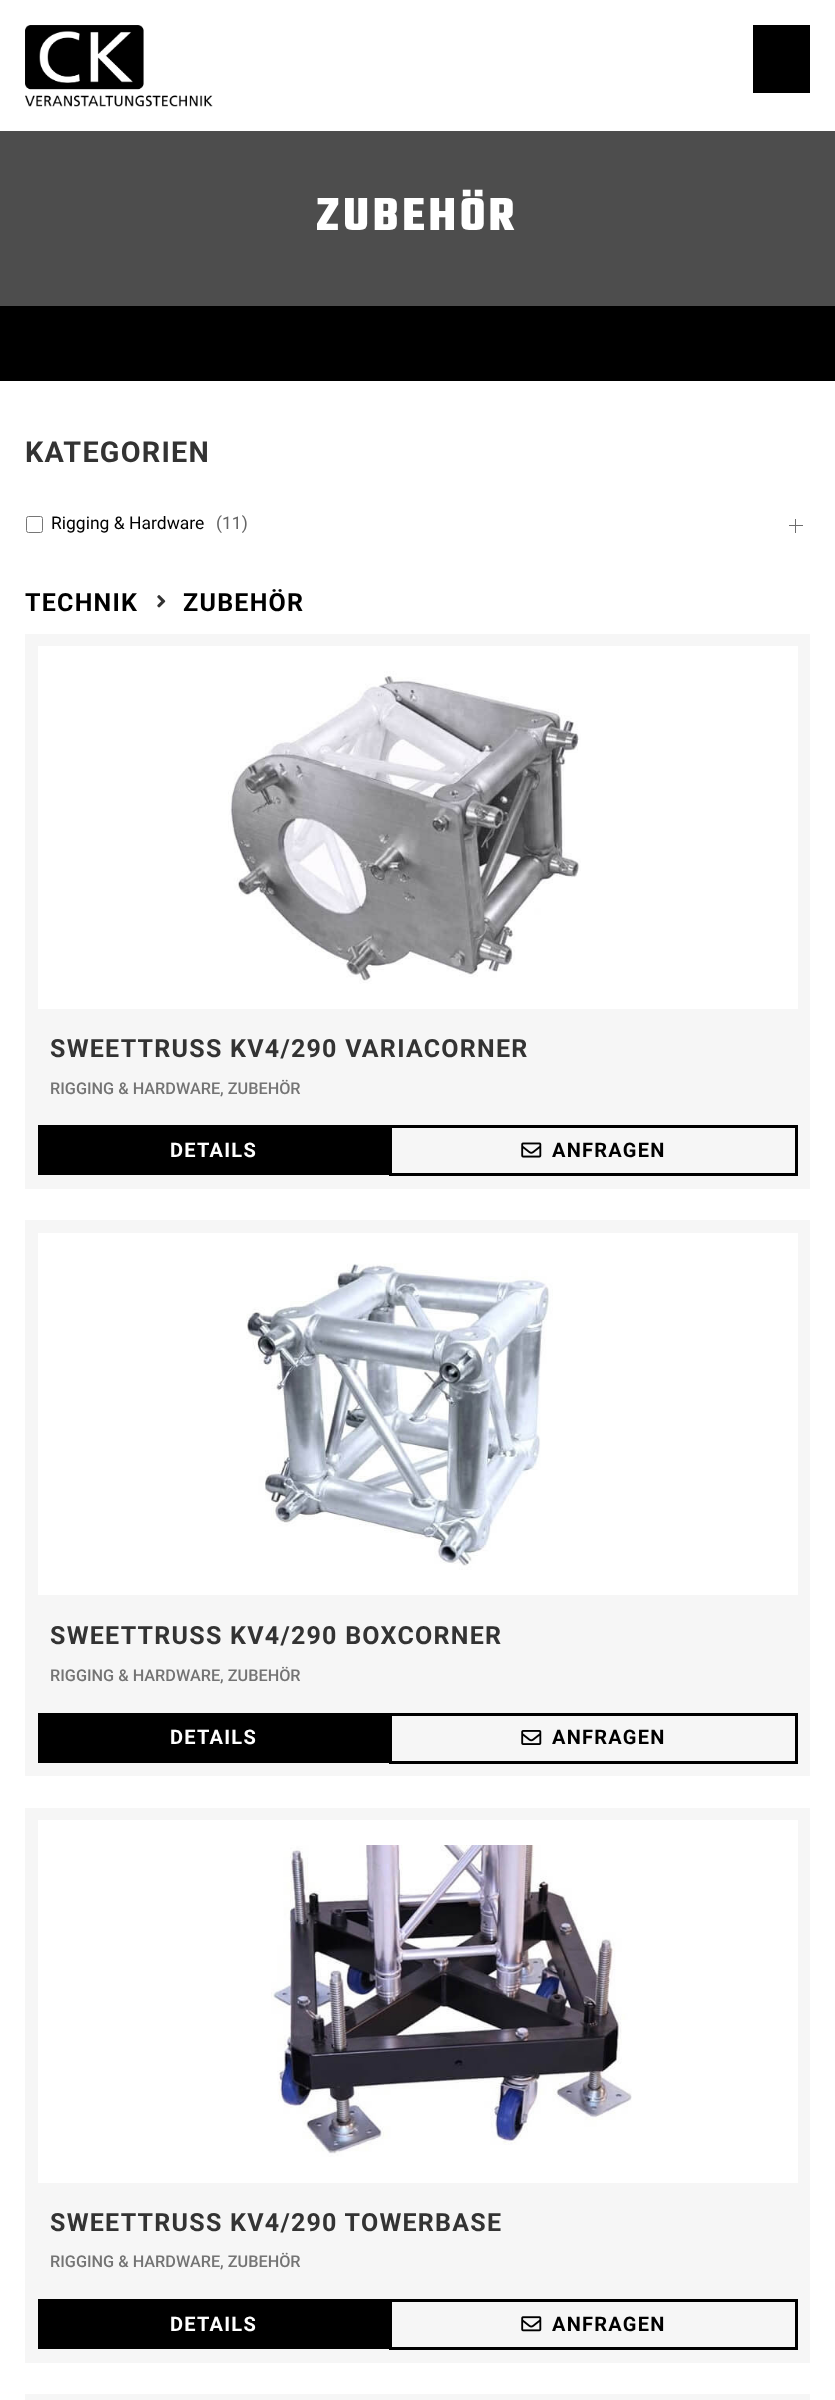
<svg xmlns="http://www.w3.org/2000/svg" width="835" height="2400">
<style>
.a{font:bold 50px Teko;letter-spacing:3.75px;fill:#fff}
.b{font:bold 28.75px Roboto;letter-spacing:1.25px;fill:#333}
.c{font:17.5px Roboto;fill:#000}
.d{font:17.5px Roboto;fill:#666}
.e{font:bold 25px Roboto;letter-spacing:1.25px;fill:#000}
.f{font:bold 25px Roboto;letter-spacing:1.25px;fill:#333}
.g{font:500 16.25px Roboto;fill:#747474}
.h{font:bold 20px Roboto;letter-spacing:1.25px;fill:#fff}
.i{font:bold 20px Roboto;letter-spacing:1.25px;fill:#000}
</style>
<rect width="100%" height="100%" fill="#fff"/>
<image href="1.png" x="25" y="25" width="188" height="82"/>
<path fill="#000" d="M753 25h57v68H753z"/>
<path fill="#4d4d4d" d="M0 131h835v175H0z"/>
<path fill="#000" d="M0 306h835v75H0z"/>
<rect fill="none" stroke="#767676" x="26.5" y="516.5" width="16" height="16" rx="2"/>
<path fill="#6d6d6d" d="M795 519h1v14H795z"/>
<path fill="#6d6d6d" d="M789 525h14v1H789z"/>
<image href="2.png" x="157" y="595" width="9" height="13"/>
<path fill="#f6f6f6" d="M25 634h785v555H25z"/>
<path fill="#fff" d="M38 646h760v363H38z"/>
<image href="3.png" x="228" y="671" width="353" height="313"/>
<path fill="#000" d="M38 1125h351v50H38z"/>
<path fill="none" stroke="#000" stroke-width="3" d="M390.5 1126.5h406v48H390.5z"/>
<image href="4.png" x="521" y="1142" width="21" height="16"/>
<path fill="#f6f6f6" d="M25 1220h785v556H25z"/>
<path fill="#fff" d="M38 1233h760v362H38z"/>
<image href="5.png" x="246" y="1263" width="307" height="307"/>
<path fill="#000" d="M38 1713h351v50H38z"/>
<path fill="none" stroke="#000" stroke-width="3" d="M390.5 1714.5h406v48H390.5z"/>
<image href="6.png" x="521" y="1730" width="21" height="15"/>
<path fill="#f6f6f6" d="M25 1808h785v555H25z"/>
<path fill="#fff" d="M38 1820h760v363H38z"/>
<image href="7.png" x="271" y="1845" width="361" height="312"/>
<path fill="#000" d="M38 2299h351v50H38z"/>
<path fill="none" stroke="#000" stroke-width="3" d="M390.5 2300.5h406v48H390.5z"/>
<image href="8.png" x="521" y="2316" width="21" height="16"/>
<path fill="#f6f6f6" d="M25 2394h785v6H25z"/>
<text class="a" x="316" y="230">ZUBEHÖR</text>
<text class="b" x="25" y="462">KATEGORIEN</text>
<text class="c" x="51" y="529">Rigging &amp; Hardware</text>
<text class="d" x="216" y="529">(11)</text>
<text class="e" x="25" y="611">TECHNIK</text>
<text class="e" x="183" y="611">ZUBEHÖR</text>
<text class="f" x="50" y="1057">SWEETTRUSS KV4/290 VARIACORNER</text>
<text class="g" x="50" y="1094">RIGGING &amp; HARDWARE, ZUBEHÖR</text>
<text class="h" x="170" y="1157">DETAILS</text>
<text class="i" x="552" y="1157">ANFRAGEN</text>
<text class="f" x="50" y="1644">SWEETTRUSS KV4/290 BOXCORNER</text>
<text class="g" x="50" y="1681">RIGGING &amp; HARDWARE, ZUBEHÖR</text>
<text class="h" x="170" y="1744">DETAILS</text>
<text class="i" x="552" y="1744">ANFRAGEN</text>
<text class="f" x="50" y="2231">SWEETTRUSS KV4/290 TOWERBASE</text>
<text class="g" x="50" y="2267">RIGGING &amp; HARDWARE, ZUBEHÖR</text>
<text class="h" x="170" y="2331">DETAILS</text>
<text class="i" x="552" y="2331">ANFRAGEN</text>
</svg>
